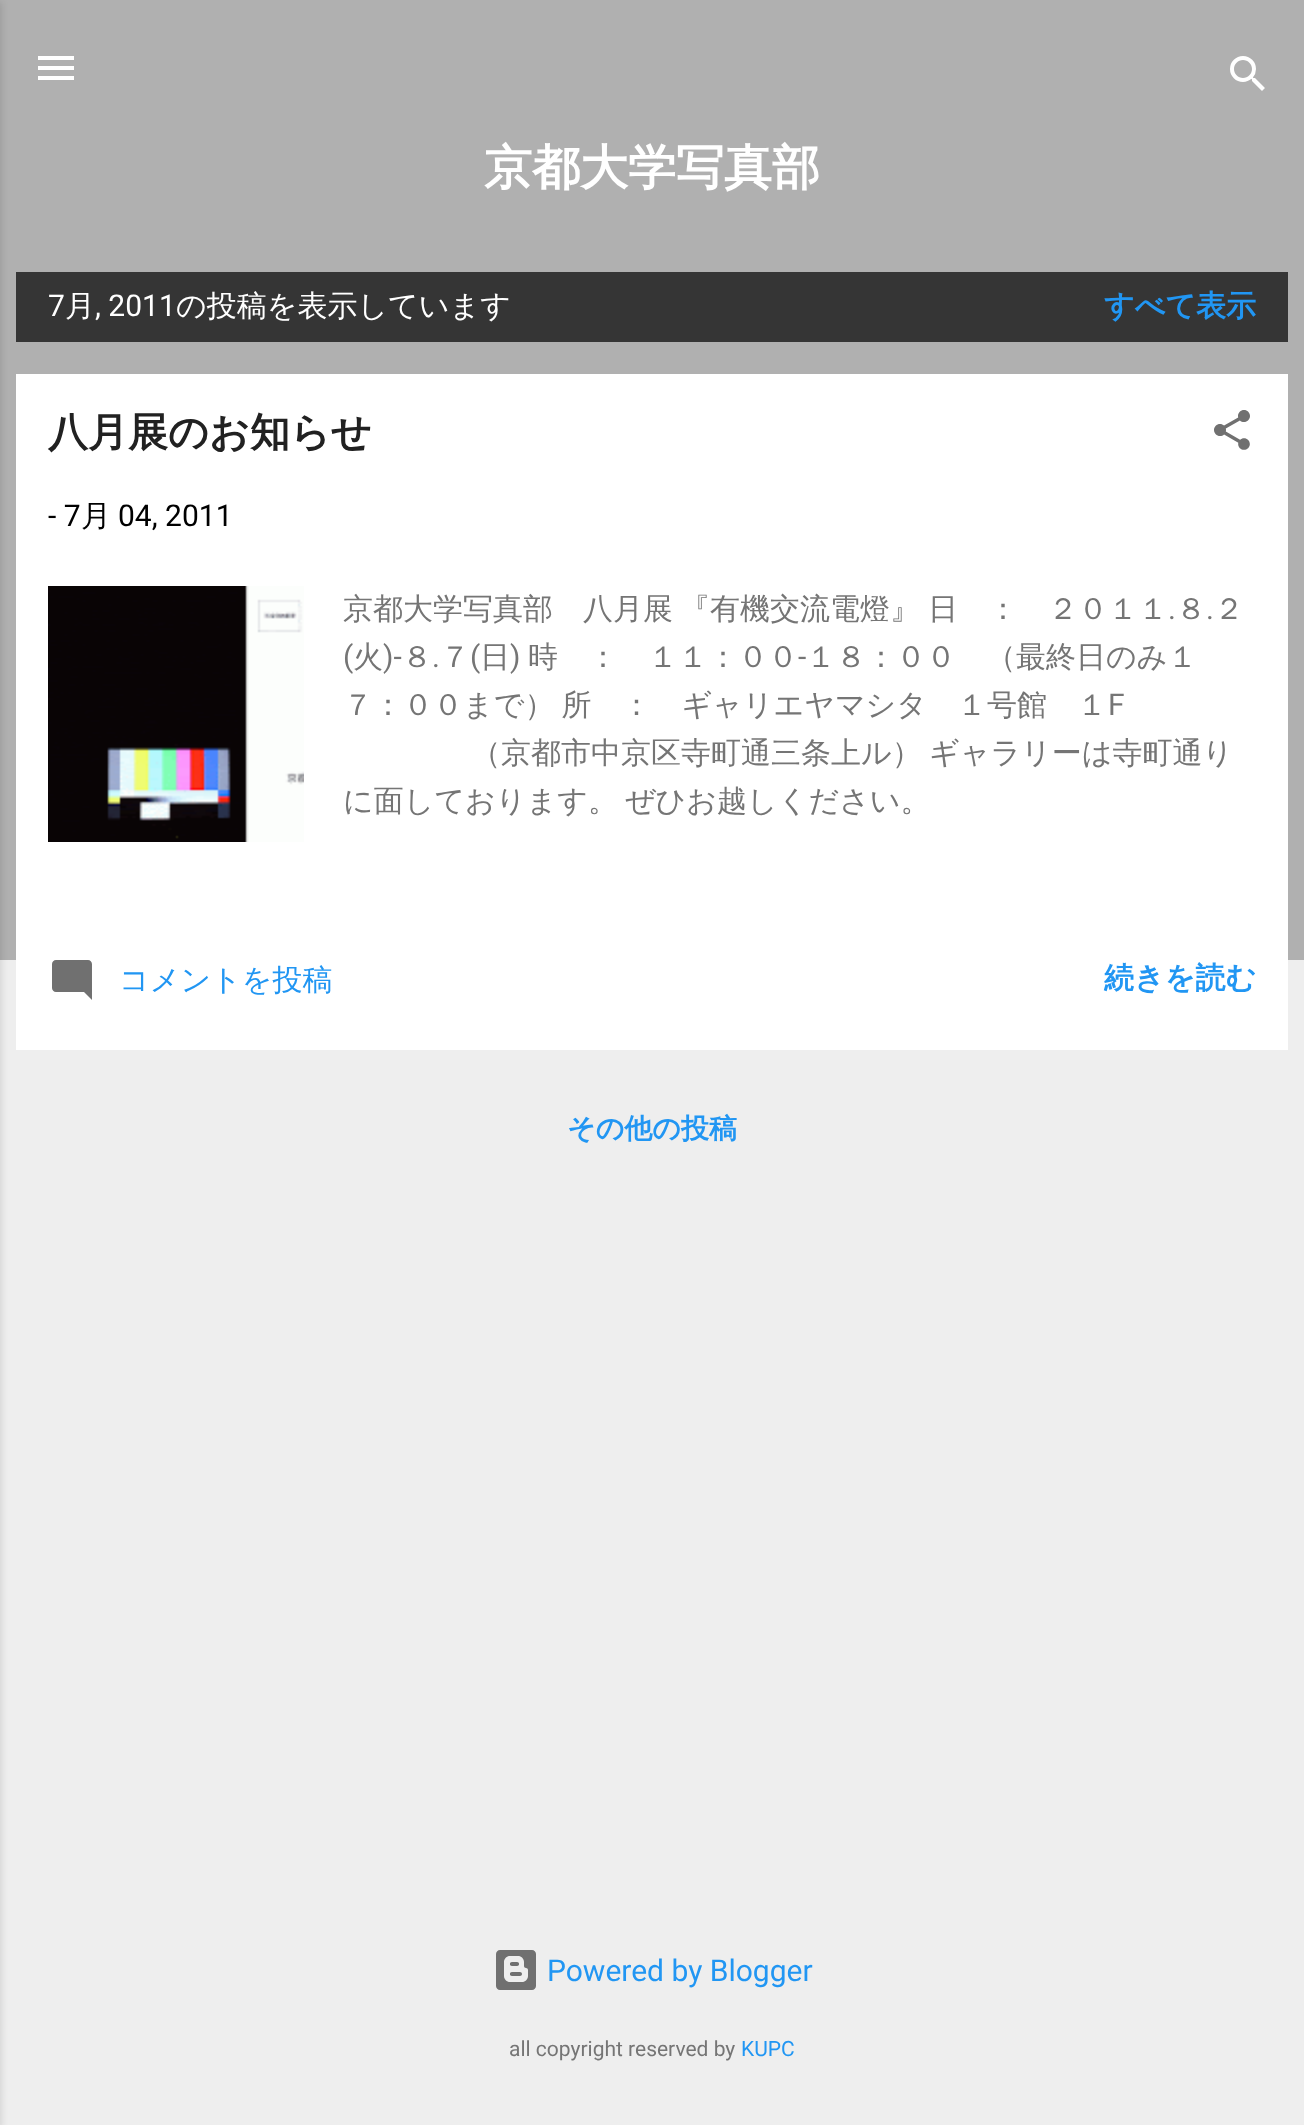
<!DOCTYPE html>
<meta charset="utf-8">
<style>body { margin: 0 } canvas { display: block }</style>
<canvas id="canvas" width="1304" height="2125"></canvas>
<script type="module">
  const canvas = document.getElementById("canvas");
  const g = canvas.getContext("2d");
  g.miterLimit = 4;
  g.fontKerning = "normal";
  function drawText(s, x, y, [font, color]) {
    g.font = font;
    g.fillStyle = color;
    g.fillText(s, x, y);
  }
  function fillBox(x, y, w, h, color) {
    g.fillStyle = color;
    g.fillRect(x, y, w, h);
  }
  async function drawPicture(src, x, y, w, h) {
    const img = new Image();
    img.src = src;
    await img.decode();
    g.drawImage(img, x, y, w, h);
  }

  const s1 = ["bold 48px WenQuanYi Zen Hei", "#FFFFFF"];
  const s2 = ["30px Roboto", "#FFFFFF"];
  const s3 = ["500 30px WenQuanYi Zen Hei", "#FFFFFF"];
  const s4 = ["bold 30px WenQuanYi Zen Hei", "#2196F3"];
  const s5 = ["bold 40px WenQuanYi Zen Hei", "#212121"];
  const s6 = ["30px Roboto", "#000000"];
  const s7 = ["500 30px WenQuanYi Zen Hei", "#000000"];
  const s8 = ["500 30px WenQuanYi Zen Hei", "#757575"];
  const s9 = ["30px Roboto", "#757575"];
  const s10 = ["500 30px WenQuanYi Zen Hei", "#2196F3"];
  const s11 = ["bold 28px WenQuanYi Zen Hei", "#2196F3"];
  const s12 = ["30px Roboto", "#2196F3"];
  const s13 = ["21px Roboto", "#757575"];
  const s14 = ["21px Roboto", "#2196F3"];

  fillBox(0, 0, 1304, 2125, "#EEEEEE");
  fillBox(0, 0, 1304, 960, "#B0B0B0");
  g.fillStyle = "rgba(0, 0, 0, 0.1)";
  g.filter = "blur(3px)";
  g.beginPath();
  g.rect(-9, 2, 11, 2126);
  g.fill();
  g.filter = "none";
  await drawPicture("pic1.png", 38, 56, 36, 24);
  await drawPicture("pic2.png", 1230, 56, 35, 35);
  drawText("京都大学写真部", 484, 184, s1);
  fillBox(16, 272, 1272, 70, "#353535");
  drawText("7", 48, 316, s2);
  drawText("月", 65, 316, s3);
  drawText(", 2011", 95, 316, s2);
  drawText("の投稿を表示しています", 176, 316, s3);
  drawText("すべて表示", 1104, 316, s4);
  fillBox(16, 374, 1272, 676, "#FFFFFF");
  drawText("八月展のお知らせ", 48, 446, s5);
  await drawPicture("pic3.png", 1214, 410, 36, 40);
  drawText("- 7", 48, 526, s6);
  drawText("月", 81, 526, s7);
  drawText("04, 2011", 118, 526, s6);
  await drawPicture("pic4.png", 48, 586, 256, 256);
  g.wordSpacing = "-2px";
  drawText("京都大学写真部　八月展 『有機交流電燈』", 343, 619, s8);
  g.wordSpacing = "0px";
  drawText("日　：　２０１１", 928, 619, s8);
  drawText(".", 1168, 619, s9);
  drawText("８", 1176, 619, s8);
  drawText(".", 1206, 619, s9);
  drawText("２", 1214, 619, s8);
  drawText("(", 343, 667, s9);
  drawText("火", 353, 667, s8);
  drawText(")-", 383, 667, s9);
  drawText("８", 402, 667, s8);
  drawText("７", 440, 667, s8);
  drawText("(", 470, 667, s9);
  drawText("日", 480, 667, s8);
  drawText(")", 510, 667, s9);
  drawText("時　：　１１：００", 528, 667, s8);
  drawText("-", 798, 667, s9);
  drawText("１８：００　（最終日のみ１", 806, 667, s8);
  drawText(".", 432, 667, s9);
  g.wordSpacing = "-2px";
  drawText("７：００まで） 所　：　ギャリエヤマシタ　１号館　１", 343, 715, s8);
  g.wordSpacing = "0px";
  drawText("F", 1108, 715, s9);
  drawText("（京都市中京区寺町通三条上ル）", 471, 763, s8);
  drawText("ギャラリーは寺町通り", 929, 763, s8);
  g.wordSpacing = "-2px";
  drawText("に面しております。 ぜひお越しください。", 343, 811, s8);
  await drawPicture("pic5.png", 52, 960, 40, 40);
  g.wordSpacing = "0px";
  drawText("コメントを投稿", 119, 990, s10);
  drawText("続きを読む", 1104, 988, s4);
  drawText("その他の投稿", 567, 1138, s11);
  await drawPicture("pic6.png", 496, 1950, 40, 40);
  drawText("Powered by Blogger", 547, 1981, s12);
  drawText("all copyright reserved by", 509, 2056, s13);
  drawText("KUPC", 741, 2056, s14);
</script>
